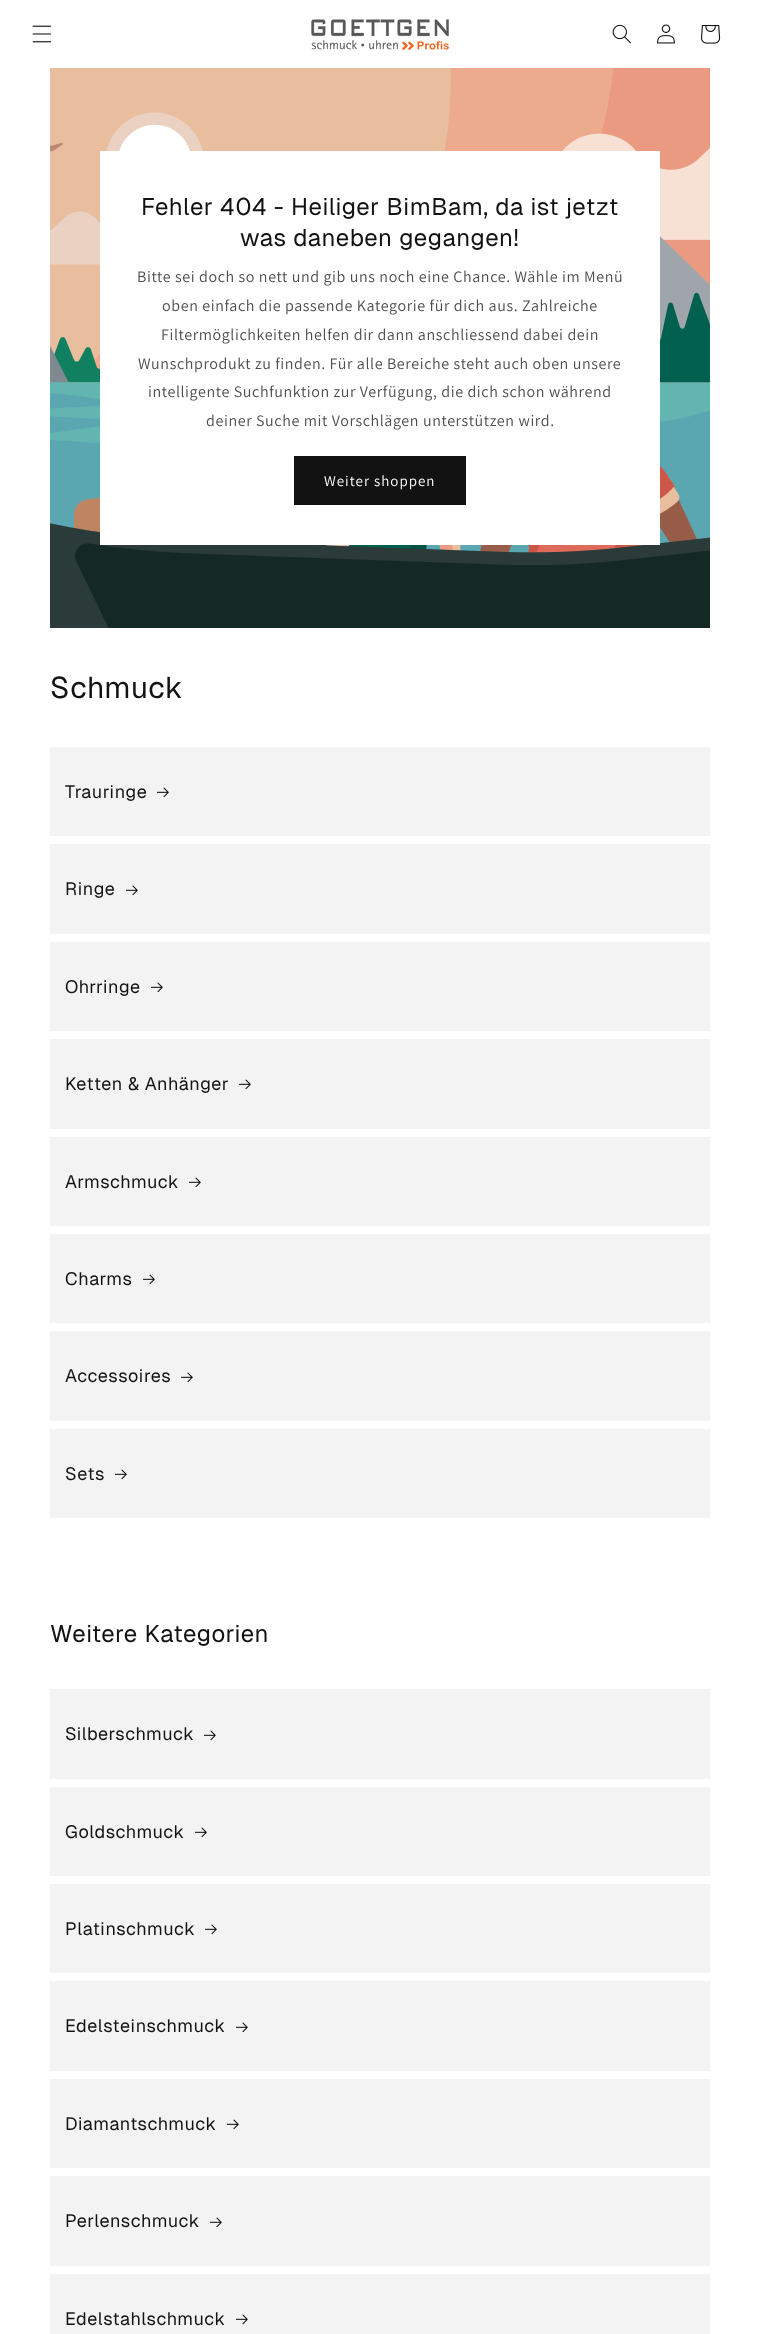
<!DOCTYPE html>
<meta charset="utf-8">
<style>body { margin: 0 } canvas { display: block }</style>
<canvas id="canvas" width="760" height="2334"></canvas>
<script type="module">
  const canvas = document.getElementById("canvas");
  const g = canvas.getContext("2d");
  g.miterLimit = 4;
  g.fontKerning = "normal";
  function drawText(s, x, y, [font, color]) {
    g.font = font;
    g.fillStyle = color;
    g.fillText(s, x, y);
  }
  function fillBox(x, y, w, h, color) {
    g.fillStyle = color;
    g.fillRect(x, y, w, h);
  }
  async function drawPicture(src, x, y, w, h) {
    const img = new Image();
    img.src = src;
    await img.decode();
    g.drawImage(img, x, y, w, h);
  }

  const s1 = ["24px Geist", "#121212"];
  const s2 = ["16px Assistant", "#4D4D4D"];
  const s3 = ["15px Assistant", "#FFFFFF"];
  const s4 = ["30px Geist", "#121212"];
  const s5 = ["18px Geist", "#121212"];

  fillBox(0, 0, 760, 2334, "#FFFFFF");
  await drawPicture("pic1.png", 32, 25, 20, 18);
  await drawPicture("pic2.png", 311, 19, 138, 31);
  await drawPicture("pic3.png", 612, 24, 19, 20);
  await drawPicture("pic4.png", 657, 24, 18, 20);
  await drawPicture("pic5.png", 701, 25, 20, 19);
  await drawPicture("pic6.png", 50, 68, 660, 560);
  fillBox(100, 151, 560, 394, "#FFFFFF");
  g.letterSpacing = "0.6px";
  drawText("Fehler 404 - Heiliger BimBam, da ist jetzt", 141, 215, s1);
  drawText("was daneben gegangen!", 240, 246, s1);
  drawText("Bitte sei doch so nett und gib uns noch eine Chance. Wähle im Menü", 137, 282, s2);
  drawText("oben einfach die passende Kategorie für dich aus. Zahlreiche", 162, 311, s2);
  drawText("Filtermöglichkeiten helfen dir dann anschliessend dabei dein", 161, 340, s2);
  drawText("Wunschprodukt zu finden. Für alle Bereiche steht auch oben unsere", 138, 369, s2);
  drawText("intelligente Suchfunktion zur Verfügung, die dich schon während", 148, 397, s2);
  drawText("deiner Suche mit Vorschlägen unterstützen wird.", 206, 426, s2);
  fillBox(294, 456, 172, 49, "#121212");
  g.letterSpacing = "1px";
  drawText("Weiter shoppen", 324, 486, s3);
  g.letterSpacing = "0.6px";
  drawText("Schmuck", 50, 698, s4);
  fillBox(50, 747, 660, 89, "#F3F3F3");
  drawText("Trauringe", 65, 798, s5);
  await drawPicture("pic7.png", 157, 787, 12, 11);
  fillBox(50, 844, 660, 90, "#F3F3F3");
  drawText("Ringe", 65, 895, s5);
  await drawPicture("pic8.png", 126, 885, 12, 10);
  fillBox(50, 942, 660, 89, "#F3F3F3");
  drawText("Ohrringe", 65, 993, s5);
  await drawPicture("pic7.png", 151, 982, 12, 11);
  fillBox(50, 1039, 660, 90, "#F3F3F3");
  drawText("Ketten & Anhänger", 65, 1090, s5);
  await drawPicture("pic7.png", 239, 1079, 12, 11);
  fillBox(50, 1137, 660, 89, "#F3F3F3");
  drawText("Armschmuck", 65, 1188, s5);
  await drawPicture("pic7.png", 189, 1177, 12, 11);
  fillBox(50, 1234, 660, 89, "#F3F3F3");
  drawText("Charms", 65, 1285, s5);
  await drawPicture("pic7.png", 143, 1274, 12, 11);
  fillBox(50, 1331, 660, 90, "#F3F3F3");
  drawText("Accessoires", 65, 1382, s5);
  await drawPicture("pic8.png", 181, 1372, 12, 10);
  fillBox(50, 1429, 660, 89, "#F3F3F3");
  drawText("Sets", 65, 1480, s5);
  await drawPicture("pic7.png", 115, 1469, 12, 11);
  drawText("Weitere Kategorien", 50, 1642, s1);
  fillBox(50, 1689, 660, 90, "#F3F3F3");
  drawText("Silberschmuck", 65, 1740, s5);
  await drawPicture("pic8.png", 204, 1730, 12, 10);
  fillBox(50, 1787, 660, 89, "#F3F3F3");
  drawText("Goldschmuck", 65, 1838, s5);
  await drawPicture("pic7.png", 195, 1827, 12, 11);
  fillBox(50, 1884, 660, 89, "#F3F3F3");
  drawText("Platinschmuck", 65, 1935, s5);
  await drawPicture("pic7.png", 205, 1924, 12, 11);
  fillBox(50, 1981, 660, 90, "#F3F3F3");
  drawText("Edelsteinschmuck", 65, 2032, s5);
  await drawPicture("pic8.png", 236, 2022, 12, 10);
  fillBox(50, 2079, 660, 89, "#F3F3F3");
  drawText("Diamantschmuck", 65, 2130, s5);
  await drawPicture("pic7.png", 227, 2119, 12, 11);
  fillBox(50, 2176, 660, 90, "#F3F3F3");
  drawText("Perlenschmuck", 65, 2227, s5);
  await drawPicture("pic8.png", 210, 2217, 12, 10);
  fillBox(50, 2274, 660, 60, "#F3F3F3");
  drawText("Edelstahlschmuck", 65, 2325, s5);
  await drawPicture("pic7.png", 236, 2314, 12, 11);
</script>
